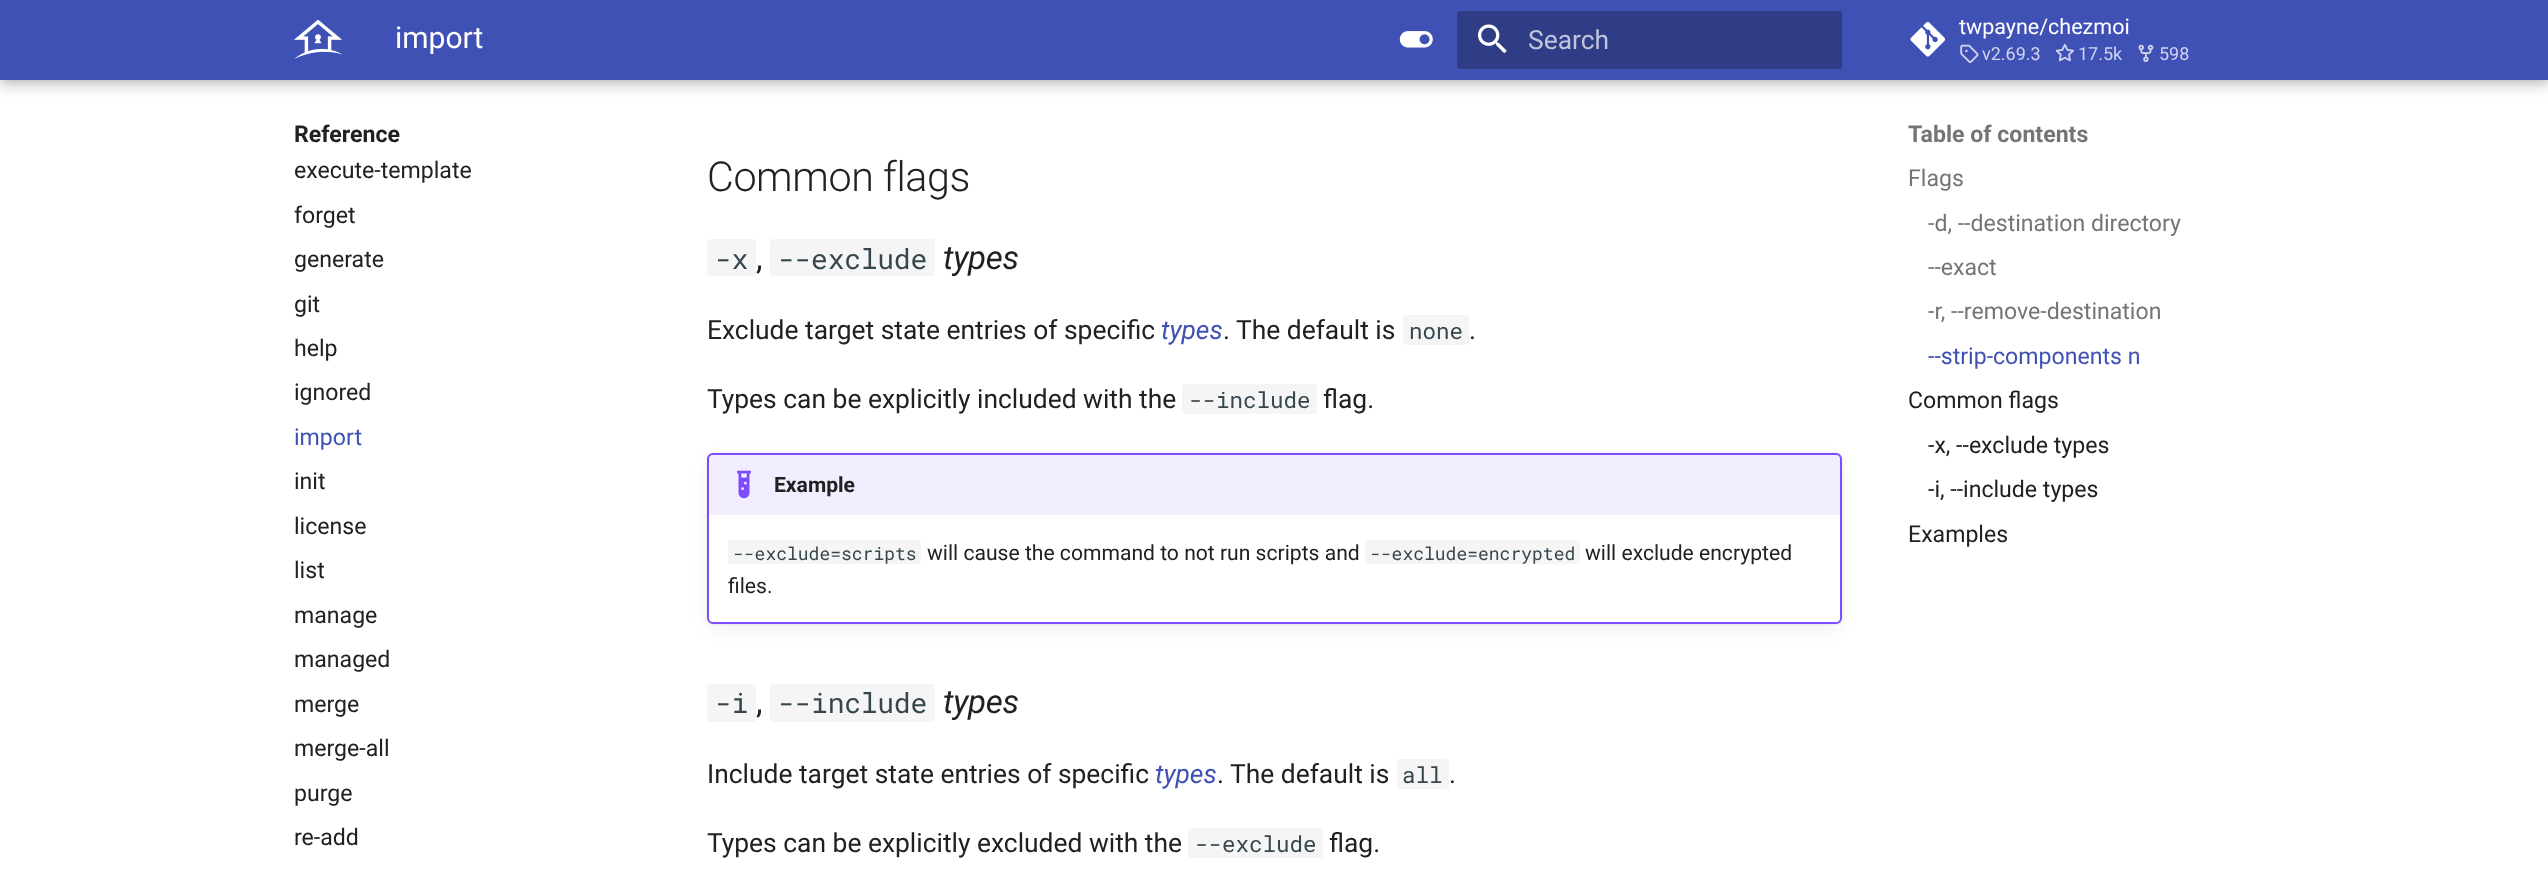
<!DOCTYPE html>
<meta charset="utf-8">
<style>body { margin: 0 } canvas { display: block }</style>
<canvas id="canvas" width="2548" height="896"></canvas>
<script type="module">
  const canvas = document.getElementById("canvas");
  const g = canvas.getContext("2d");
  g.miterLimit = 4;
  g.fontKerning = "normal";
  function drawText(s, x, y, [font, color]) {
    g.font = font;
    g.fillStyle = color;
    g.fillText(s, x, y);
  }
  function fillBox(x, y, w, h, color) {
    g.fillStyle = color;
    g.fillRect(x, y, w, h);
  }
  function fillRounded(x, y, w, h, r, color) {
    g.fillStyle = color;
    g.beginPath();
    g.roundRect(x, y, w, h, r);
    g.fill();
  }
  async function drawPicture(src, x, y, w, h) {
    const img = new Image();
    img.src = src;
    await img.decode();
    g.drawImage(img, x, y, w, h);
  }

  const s1 = ["30px Roboto", "#FFFFFF"];
  const s2 = ["26.4px Roboto", "#C1C5DB"];
  const s3 = ["21.5px Roboto", "#FFFFFF"];
  const s4 = ["18px Roboto", "#CFD4ED"];
  const s5 = ["bold 23.1px Roboto", "#212121"];
  const s6 = ["23.1px Roboto", "#212121"];
  const s7 = ["23.1px Roboto", "#4051B5"];
  const s8 = ["300 41.25px Roboto", "#212121"];
  const s9 = ["28px Roboto Mono", "#36464E"];
  const s10 = ["33px Roboto", "#212121"];
  const s11 = ["italic 33px Roboto", "#212121"];
  const s12 = ["26.4px Roboto", "#212121"];
  const s13 = ["italic 26.4px Roboto", "#4051B5"];
  const s14 = ["22.5px Roboto Mono", "#36464E"];
  const s15 = ["bold 21.1px Roboto", "#212121"];
  const s16 = ["18px Roboto Mono", "#36464E"];
  const s17 = ["21.1px Roboto", "#212121"];
  const s18 = ["bold 23.1px Roboto", "#757575"];
  const s19 = ["23.1px Roboto", "#757575"];

  fillBox(0, 0, 2548, 896, "#FFFFFF");
  g.fillStyle = "rgba(0, 0, 0, 0.2)";
  g.filter = "blur(6.5px)";
  g.beginPath();
  g.rect(0, 6, 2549, 80);
  g.fill();
  g.filter = "none";
  g.fillStyle = "rgba(0, 0, 0, 0.1)";
  g.filter = "blur(3.5px)";
  g.beginPath();
  g.rect(0, 0, 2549, 80);
  g.fill();
  g.filter = "none";
  fillBox(0, 0, 2548, 80, "#4051B5");
  await drawPicture("pic1.png", 294, 20, 48, 39);
  drawText("import", 395, 48, s1);
  await drawPicture("pic2.png", 1399, 31, 34, 17);
  fillRounded(1457, 11, 385, 58, 3, "#2F3C86");
  await drawPicture("pic3.png", 1478, 24, 29, 30);
  drawText("Search", 1528, 49, s2);
  await drawPicture("pic4.png", 1910, 22, 36, 35);
  drawText("twpayne/chezmoi", 1959, 34, s3);
  await drawPicture("pic5.png", 1960, 44, 19, 19);
  drawText("v2.69.3", 1982, 60, s4);
  await drawPicture("pic6.png", 2055, 44, 19, 18);
  drawText("17.5k", 2078, 60, s4);
  await drawPicture("pic7.png", 2138, 44, 16, 18);
  drawText("598", 2159, 60, s4);
  g.save();
  g.beginPath();
  g.rect(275, 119, 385, 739);
  g.clip();
  g.fillStyle = "#FFFFFF";
  g.filter = "blur(6.5px)";
  g.beginPath();
  g.rect(281, 105, 373, 57);
  g.fill();
  g.filter = "none";
  g.restore();
  drawText("Reference", 294, 142, s5);
  drawText("execute-template", 294, 178, s6);
  drawText("forget", 294, 223, s6);
  drawText("generate", 294, 267, s6);
  drawText("git", 294, 312, s6);
  drawText("help", 294, 356, s6);
  drawText("ignored", 294, 400, s6);
  drawText("import", 294, 445, s7);
  drawText("init", 294, 489, s6);
  drawText("license", 294, 534, s6);
  drawText("list", 294, 578, s6);
  drawText("manage", 294, 623, s6);
  drawText("managed", 294, 667, s6);
  drawText("merge", 294, 712, s6);
  drawText("merge-all", 294, 756, s6);
  drawText("purge", 294, 801, s6);
  drawText("re-add", 294, 845, s6);
  g.letterSpacing = "-0.4px";
  drawText("Common flags", 707, 191, s8);
  fillRounded(707, 239, 49, 37, 3, "#F5F5F5");
  g.letterSpacing = "-0.25px";
  drawText("-x", 715, 269, s9);
  drawText(",", 756, 269, s10);
  fillRounded(770, 239, 165, 37, 3, "#F5F5F5");
  drawText("--exclude", 778, 269, s9);
  drawText("types", 943, 269, s11);
  g.letterSpacing = "0px";
  drawText("Exclude target state entries of specific", 707, 339, s12);
  drawText("types", 1161, 339, s13);
  drawText(". The default is", 1223, 339, s12);
  fillRounded(1403, 315, 66, 30, 3, "#F5F5F5");
  drawText("none", 1409, 339, s14);
  drawText(".", 1469, 339, s12);
  drawText("Types can be explicitly included with the", 707, 408, s12);
  fillRounded(1182, 384, 135, 30, 3, "#F5F5F5");
  drawText("--include", 1189, 408, s14);
  drawText("flag.", 1323, 408, s12);
  g.fillStyle = "rgba(0, 0, 0, 0.1)";
  g.filter = "blur(1px)";
  g.beginPath();
  g.roundRect(707, 453, 1135, 171, 6);
  g.fill();
  g.filter = "none";
  g.fillStyle = "rgba(0, 0, 0, 0.05)";
  g.filter = "blur(8px)";
  g.beginPath();
  g.roundRect(707, 459, 1135, 171, 6);
  g.fill();
  g.filter = "none";
  g.fillStyle = "#FFFFFF";
  g.beginPath();
  g.roundRect(708, 454, 1133, 169, 5);
  g.fill();
  g.strokeStyle = "#7C4DFF";
  g.lineWidth = 2;
  g.stroke();
  g.fillStyle = "rgba(124, 77, 255, 0.1)";
  g.beginPath();
  g.roundRect(708, 455, 1133, 60, [3, 3, 0, 0]);
  g.fill();
  await drawPicture("pic8.png", 737, 470, 14, 29);
  drawText("Example", 774, 492, s15);
  fillRounded(728, 540, 193, 24, 3, "#F5F5F5");
  drawText("--exclude=scripts", 733, 560, s16);
  drawText("will cause the command to not run scripts and", 927, 560, s17);
  fillRounded(1365, 540, 215, 24, 3, "#F5F5F5");
  drawText("--exclude=encrypted", 1370, 560, s16);
  drawText("will exclude encrypted", 1585, 560, s17);
  drawText("files.", 728, 593, s17);
  fillRounded(707, 684, 49, 38, 3, "#F5F5F5");
  g.letterSpacing = "-0.25px";
  drawText("-i", 715, 713, s9);
  drawText(",", 756, 713, s10);
  fillRounded(770, 684, 165, 38, 3, "#F5F5F5");
  drawText("--include", 778, 713, s9);
  drawText("types", 943, 713, s11);
  g.letterSpacing = "0px";
  drawText("Include target state entries of specific", 707, 783, s12);
  drawText("types", 1155, 783, s13);
  drawText(". The default is", 1217, 783, s12);
  fillRounded(1397, 759, 52, 30, 3, "#F5F5F5");
  drawText("all", 1402, 783, s14);
  drawText(".", 1449, 783, s12);
  drawText("Types can be explicitly excluded with the", 707, 852, s12);
  fillRounded(1188, 828, 135, 30, 3, "#F5F5F5");
  drawText("--exclude", 1195, 852, s14);
  drawText("flag.", 1329, 852, s12);
  g.save();
  g.beginPath();
  g.rect(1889, 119, 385, 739);
  g.clip();
  g.beginPath();
  g.moveTo(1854, 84);
  g.lineTo(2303, 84);
  g.lineTo(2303, 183);
  g.lineTo(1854, 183);
  g.closePath();
  g.moveTo(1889, 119);
  g.lineTo(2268, 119);
  g.lineTo(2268, 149);
  g.lineTo(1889, 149);
  g.closePath();
  g.clip("evenodd");
  g.fillStyle = "#FFFFFF";
  g.filter = "blur(6.5px)";
  g.beginPath();
  g.rect(1875, 105, 407, 57);
  g.fill();
  g.filter = "none";
  g.restore();
  drawText("Table of contents", 1908, 142, s18);
  drawText("Flags", 1908, 186, s19);
  drawText("-d, --destination directory", 1928, 231, s19);
  drawText("--exact", 1928, 275, s19);
  drawText("-r, --remove-destination", 1928, 319, s19);
  drawText("--strip-components n", 1928, 364, s7);
  drawText("Common flags", 1908, 408, s6);
  drawText("-x, --exclude types", 1928, 453, s6);
  drawText("-i, --include types", 1928, 497, s6);
  drawText("Examples", 1908, 542, s6);
</script>
